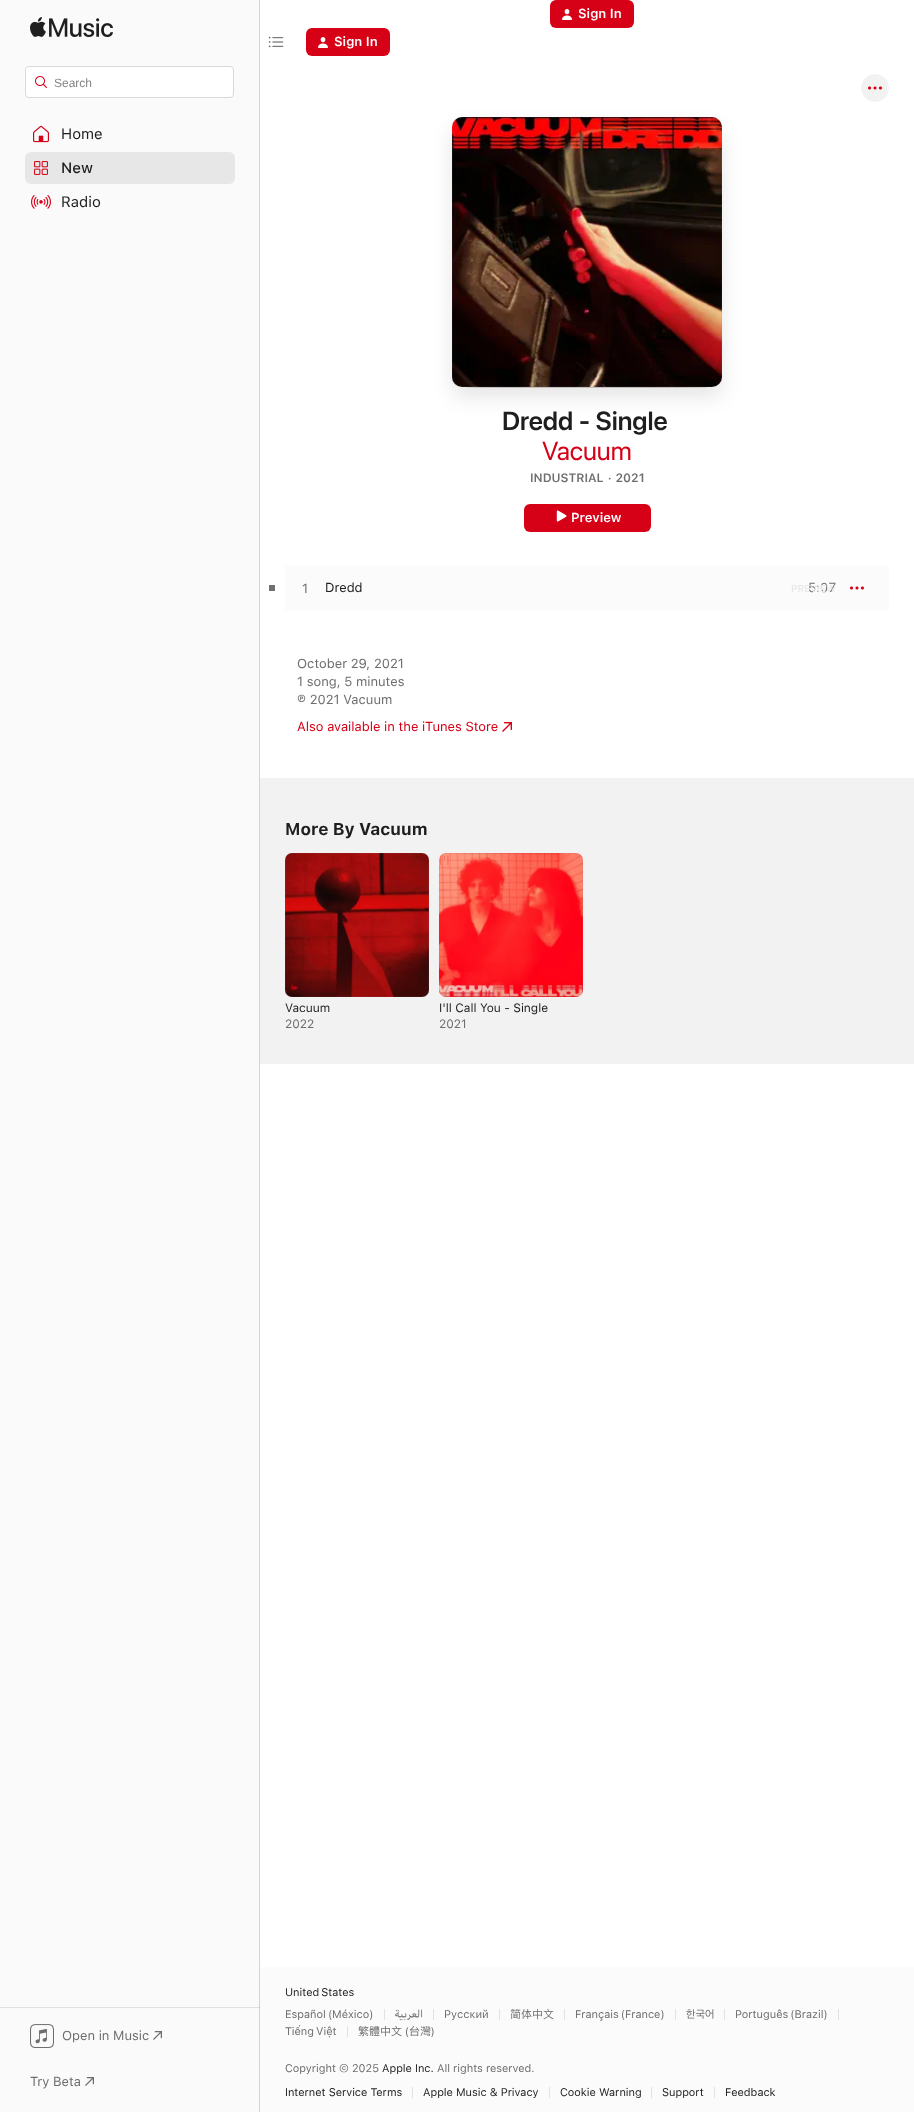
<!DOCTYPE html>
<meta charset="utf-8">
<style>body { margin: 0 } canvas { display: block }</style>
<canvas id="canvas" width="914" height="2112"></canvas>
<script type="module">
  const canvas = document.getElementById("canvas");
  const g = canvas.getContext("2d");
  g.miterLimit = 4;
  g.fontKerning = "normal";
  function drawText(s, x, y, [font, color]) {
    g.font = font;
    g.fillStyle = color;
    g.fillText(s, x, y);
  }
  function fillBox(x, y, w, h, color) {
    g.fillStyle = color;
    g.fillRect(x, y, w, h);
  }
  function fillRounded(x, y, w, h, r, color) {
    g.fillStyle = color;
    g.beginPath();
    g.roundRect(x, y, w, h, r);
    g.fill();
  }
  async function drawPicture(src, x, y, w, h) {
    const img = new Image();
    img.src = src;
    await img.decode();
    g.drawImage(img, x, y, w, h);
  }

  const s1 = ["600 13px SF", "#FFFFFF"];
  const s2 = ["12px Liberation Sans", "#858585"];
  const s3 = ["15px SF", "#1E1E1E"];
  const s4 = ["500 15px SF", "#1E1E1E"];
  const s5 = ["13px SF", "#6E6E6E"];
  const s6 = ["600 26px 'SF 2'", "#1E1E1E"];
  const s7 = ["26px 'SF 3'", "#D60017"];
  const s8 = ["600 12px SF", "#6E6E6E"];
  const s9 = ["13px SF", "#1E1E1E"];
  const s10 = ["13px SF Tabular", "#6E6E6E"];
  const s11 = ["500 10px SF", "#E8E8E8"];
  const s12 = ["13px SF", "#D60017"];
  const s13 = ["bold 17px SF", "#1E1E1E"];
  const s14 = ["12px SF", "#1E1E1E"];
  const s15 = ["12px SF", "#6E6E6E"];
  const s16 = ["13px SF", "#FC6958"];
  const s17 = ["11px SF", "#1E1E1E"];
  const s18 = ["11px SF", "#6E6E6E"];
  const s19 = ["11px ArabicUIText", "#6E6E6E"];
  const s20 = ["11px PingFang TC", "#6E6E6E"];
  const s21 = ["11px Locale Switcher", "#6E6E6E"];
  const s22 = ["11px 'SF 2'", "#6E6E6E"];

  fillBox(0, 0, 914, 2112, "#FFFFFF");
  fillRounded(550, 0, 84, 28, 6, "#D60017");
  await drawPicture("pic1.png", 562, 9, 10, 11);
  drawText("Sign In", 578, 18, s1);
  await drawPicture("pic2.png", 268, 36, 16, 12);
  fillRounded(306, 28, 84, 28, 6, "#D60017");
  await drawPicture("pic1.png", 318, 37, 10, 11);
  drawText("Sign In", 334, 46, s1);
  fillBox(0, 0, 259, 2112, "#FAFAFA");
  fillBox(0, 2007, 260, 1, "#E1E1E1");
  fillBox(259, 0, 1, 2112, "#D5D5D5");
  fillBox(259, 2007, 1, 1, "#C0C0C0");
  await drawPicture("pic3.png", 30, 17, 83, 20);
  g.fillStyle = "#FFFFFF";
  g.beginPath();
  g.roundRect(25.5, 66.5, 208, 31, 3.5);
  g.fill();
  g.strokeStyle = "#D9D9D9";
  g.stroke();
  await drawPicture("pic4.png", 35, 76, 12, 12);
  drawText("Search", 54, 87, s2);
  await drawPicture("pic5.png", 33, 125, 16, 18);
  drawText("Home", 61, 139, s3);
  fillRounded(25, 152, 210, 32, 6, "#E7E7E8");
  await drawPicture("pic6.png", 34, 161, 14, 14);
  drawText("New", 61, 173, s4);
  await drawPicture("pic7.png", 31, 195, 20, 14);
  drawText("Radio", 61, 207, s3);
  await drawPicture("pic8.png", 30, 2024, 24, 24);
  drawText("Open in Music", 62, 2040, s5);
  await drawPicture("pic9.png", 153, 2031, 9, 9);
  drawText("Try Beta", 30, 2086, s5);
  await drawPicture("pic9.png", 85, 2077, 9, 9);
  await drawPicture("pic10.png", 861, 74, 28, 28);
  g.fillStyle = "rgba(0, 0, 0, 0.1)";
  g.filter = "blur(10px)";
  g.beginPath();
  g.roundRect(452, 127, 270, 270, 10);
  g.fill();
  g.filter = "none";
  await drawPicture("pic11.png", 452, 117, 270, 270);
  g.beginPath();
  g.roundRect(452.5, 117.5, 269, 269, 9.5);
  g.strokeStyle = "rgba(128, 128, 128, 0.1)";
  g.stroke();
  await drawPicture("pic12.png", 467, 387, 240, 1);
  drawText("Dredd - Single", 502, 430, s6);
  drawText("Vacuum", 542, 460, s7);
  drawText("INDUSTRIAL · 2021", 530, 482, s8);
  fillRounded(524, 504, 127, 28, 6, "#D60017");
  await drawPicture("pic13.png", 556, 510, 11, 12);
  drawText("Preview", 571, 522, s1);
  fillBox(285, 565, 604, 46, "#FBFBFB");
  fillBox(269, 585, 6, 6, "#707070");
  drawText("1", 302, 593, s5);
  drawText("Dredd", 325, 592, s9);
  drawText("5:07", 808, 592, s10);
  drawText("PREVIEW", 791, 592, s11);
  await drawPicture("pic14.png", 850, 586, 14, 4);
  drawText("October 29, 2021", 297, 668, s5);
  drawText("1 song, 5 minutes", 297, 686, s5);
  drawText("℗ 2021 Vacuum", 297, 704, s5);
  drawText("Also available in the iTunes Store", 297, 731, s12);
  await drawPicture("pic15.png", 502, 722, 10, 10);
  fillBox(260, 778, 654, 286, "#F2F2F2");
  drawText("More By Vacuum", 285, 835, s13);
  await drawPicture("pic16.png", 285, 853, 144, 144);
  g.beginPath();
  g.roundRect(285.5, 853.5, 143, 143, 6.5);
  g.stroke();
  drawText("Vacuum", 285, 1012, s14);
  drawText("2022", 285, 1028, s15);
  await drawPicture("pic17.png", 439, 853, 144, 144);
  g.beginPath();
  g.roundRect(439.5, 853.5, 143, 143, 6.5);
  g.stroke();
  drawText("I'l", 439, 865, s16);
  drawText("I'll Call You - Single", 439, 1012, s14);
  drawText("2021", 439, 1028, s15);
  fillBox(260, 1967, 654, 145, "#FBFBFB");
  g.wordSpacing = "-1px";
  drawText("United States", 285, 1996, s17);
  drawText("Español (México)", 285, 2018, s18);
  fillBox(384, 2009, 1, 11, "#E2E2E2");
  g.wordSpacing = "0px";
  g.direction = "rtl";
  drawText("العربية", 423, 2018, s19);
  fillBox(433, 2009, 1, 11, "#E2E2E2");
  g.direction = "ltr";
  drawText("Русский", 444, 2018, s18);
  fillBox(499, 2009, 1, 11, "#E2E2E2");
  drawText("简体中文", 510, 2018, s20);
  fillBox(564, 2009, 1, 11, "#E2E2E2");
  g.wordSpacing = "-1px";
  drawText("Français (France)", 575, 2018, s18);
  fillBox(675, 2009, 1, 11, "#E2E2E2");
  g.wordSpacing = "0px";
  drawText("한국어", 686, 2018, s21);
  fillBox(724, 2009, 1, 11, "#E2E2E2");
  g.wordSpacing = "-1px";
  drawText("Português (Brazil)", 735, 2018, s18);
  fillBox(838, 2009, 1, 11, "#E2E2E2");
  drawText("Tiếng Việt", 285, 2035, s18);
  fillBox(347, 2026, 1, 11, "#E2E2E2");
  g.wordSpacing = "0px";
  drawText("繁體中文", 358, 2035, s20);
  drawText("(", 405, 2035, s22);
  drawText("台灣", 409, 2035, s20);
  drawText(")", 431, 2035, s22);
  drawText("Copyright © 2025", 285, 2072, s18);
  drawText("Apple Inc.", 382, 2072, s17);
  drawText("All rights reserved.", 437, 2072, s18);
  drawText("Internet Service Terms", 285, 2096, s17);
  fillBox(412, 2087, 1, 11, "#E2E2E2");
  drawText("Apple Music & Privacy", 423, 2096, s17);
  fillBox(549, 2087, 1, 11, "#E2E2E2");
  drawText("Cookie Warning", 560, 2096, s17);
  fillBox(651, 2087, 1, 11, "#E2E2E2");
  drawText("Support", 662, 2096, s17);
  fillBox(714, 2087, 1, 11, "#E2E2E2");
  drawText("Feedback", 725, 2096, s17);
</script>
